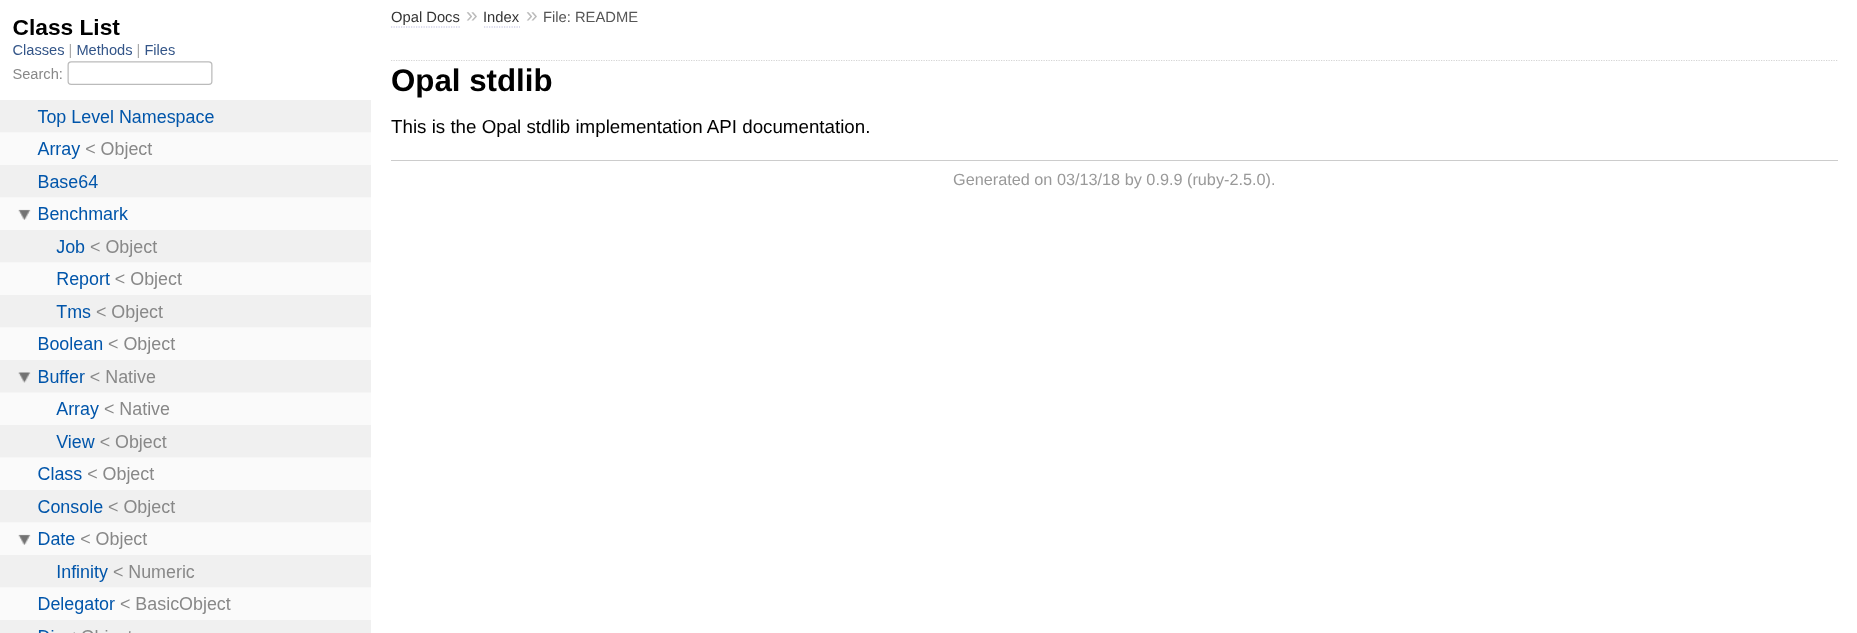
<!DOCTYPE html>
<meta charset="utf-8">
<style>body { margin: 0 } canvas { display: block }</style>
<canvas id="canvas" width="1857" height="633"></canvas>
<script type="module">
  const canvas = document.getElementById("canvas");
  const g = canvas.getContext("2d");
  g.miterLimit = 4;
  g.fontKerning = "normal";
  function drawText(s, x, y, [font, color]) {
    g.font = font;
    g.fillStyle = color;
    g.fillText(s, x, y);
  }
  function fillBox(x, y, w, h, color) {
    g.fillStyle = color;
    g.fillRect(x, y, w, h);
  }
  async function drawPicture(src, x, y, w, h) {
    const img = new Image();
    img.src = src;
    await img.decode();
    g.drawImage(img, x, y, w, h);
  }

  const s1 = ["14.75px Liberation Sans", "#333333"];
  const s2 = ["21px Liberation Sans", "#BBBBBB"];
  const s3 = ["14.75px Liberation Sans", "#555555"];
  const s4 = ["bold 31.25px Liberation Sans", "#000000"];
  const s5 = ["18.75px Liberation Sans", "#000000"];
  const s6 = ["16.25px Liberation Sans", "#999999"];

  fillBox(0, 0, 1857, 633, "#FFFFFF");
  await drawPicture("pic1.png", 0, 0, 371, 633);
  drawText("Opal Docs", 391, 22, s1);
  g.beginPath();
  g.moveTo(391, 27);
  g.lineTo(460, 27);
  g.strokeStyle = "#BBBBDD";
  g.lineWidth = 1.2;
  g.setLineDash([1.25, 1.25]);
  g.stroke();
  drawText("»", 466, 22, s2);
  drawText("Index", 483, 22, s1);
  g.beginPath();
  g.moveTo(484, 27);
  g.lineTo(520, 27);
  g.stroke();
  drawText("»", 526, 22, s2);
  drawText("File: README", 543, 22, s3);
  g.beginPath();
  g.moveTo(391, 60.5);
  g.lineTo(1837.5, 60.5);
  g.strokeStyle = "#D5D5D5";
  g.stroke();
  drawText("Opal stdlib", 391, 91, s4);
  drawText("This is the Opal stdlib implementation API documentation.", 391, 133, s5);
  fillBox(391, 160, 1447, 1, "#CCCCCC");
  drawText("Generated on 03/13/18 by 0.9.9 (ruby-2.5.0).", 953, 185, s6);
</script>
